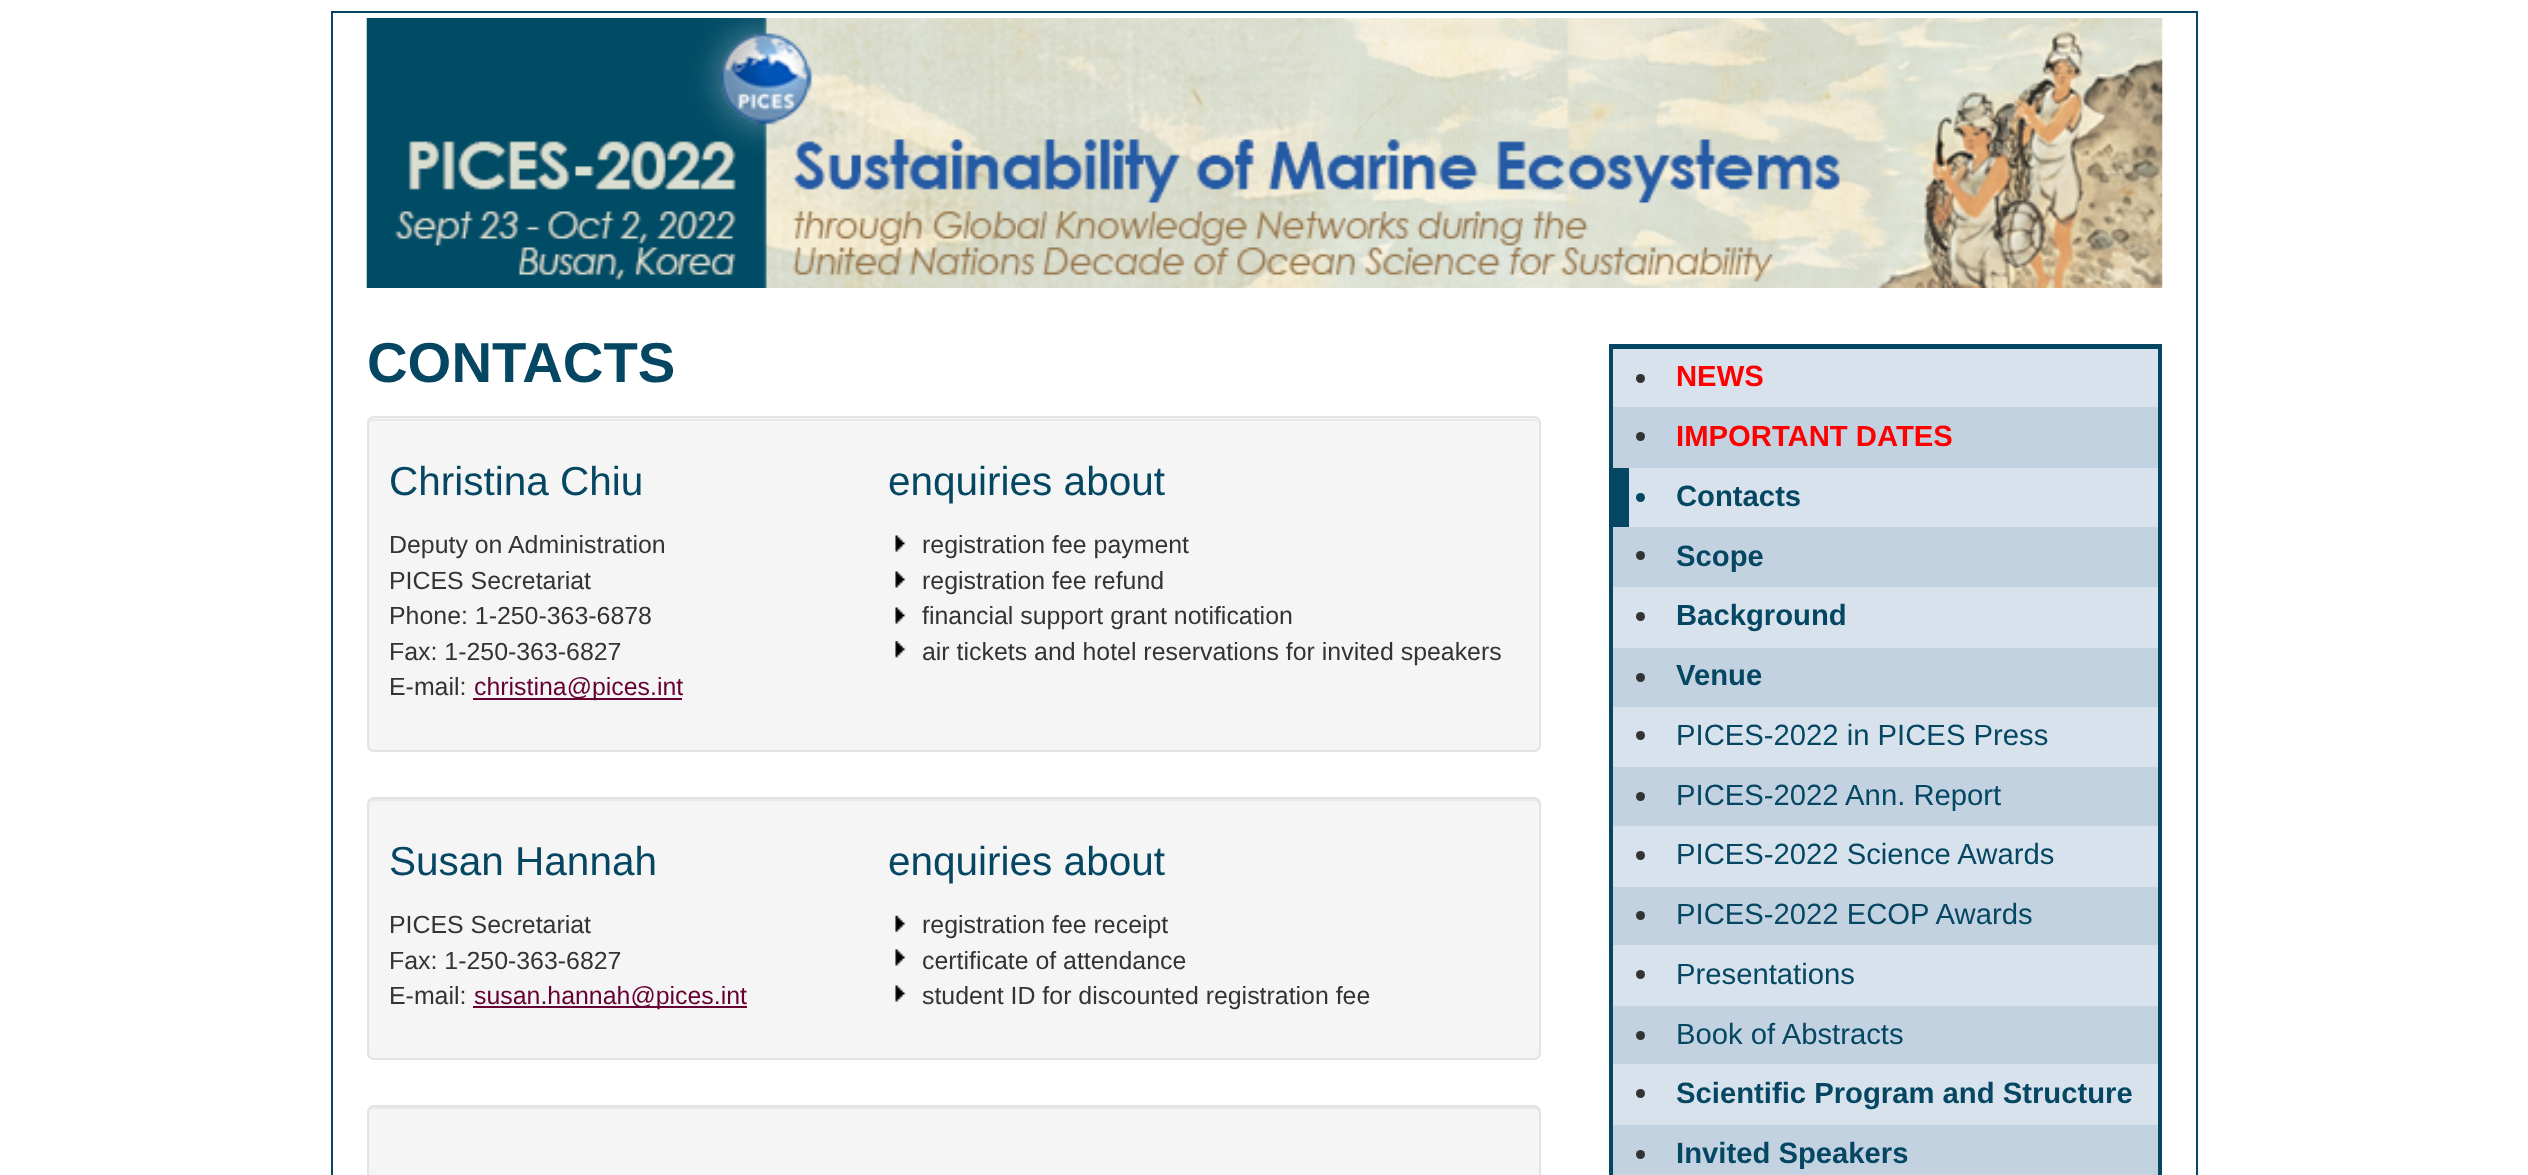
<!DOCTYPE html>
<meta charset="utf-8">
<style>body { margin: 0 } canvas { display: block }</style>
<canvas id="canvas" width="2528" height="1175"></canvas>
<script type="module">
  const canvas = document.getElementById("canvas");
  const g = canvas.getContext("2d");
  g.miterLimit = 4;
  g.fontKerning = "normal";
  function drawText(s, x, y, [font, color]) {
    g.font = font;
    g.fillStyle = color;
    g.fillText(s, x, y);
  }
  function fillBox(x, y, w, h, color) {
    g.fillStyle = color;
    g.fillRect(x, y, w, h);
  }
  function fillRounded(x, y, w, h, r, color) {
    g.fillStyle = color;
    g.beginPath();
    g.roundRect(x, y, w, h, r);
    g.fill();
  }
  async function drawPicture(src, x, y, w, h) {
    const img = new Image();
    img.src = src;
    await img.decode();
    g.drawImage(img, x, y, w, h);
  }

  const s1 = ["bold 56.25px Liberation Sans", "#054763"];
  const s2 = ["40.5px Liberation Sans", "#054763"];
  const s3 = ["24.9px Liberation Sans", "#333333"];
  const s4 = ["24.9px Liberation Sans", "#660033"];
  const s5 = ["bold 29.25px Liberation Sans", "#FF0000"];
  const s6 = ["bold 29.25px Liberation Sans", "#054763"];
  const s7 = ["29.25px Liberation Sans", "#054763"];

  fillBox(0, 0, 2528, 1175, "#FFFFFF");
  g.strokeStyle = "#054763";
  g.lineWidth = 2;
  g.strokeRect(332, 12, 1865, 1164);
  await drawPicture("pic1.png", 366, 18, 1797, 270);
  drawText("CONTACTS", 367, 382, s1);
  fillRounded(367, 416, 1174, 336, 7, "#F5F5F5");
  g.fillStyle = "#E9E9E9";
  g.beginPath();
  g.moveTo(374, 421);
  g.lineTo(1534, 421);
  g.bezierCurveTo(1537, 421, 1539, 423, 1539, 425);
  g.bezierCurveTo(1539, 422, 1537, 419, 1534, 419);
  g.lineTo(374, 419);
  g.bezierCurveTo(371, 419, 369, 422, 369, 425);
  g.bezierCurveTo(369, 423, 371, 421, 374, 421);
  g.closePath();
  g.fill();
  g.beginPath();
  g.roundRect(368, 417, 1172, 334, 6);
  g.strokeStyle = "#E3E3E3";
  g.stroke();
  drawText("Christina Chiu", 389, 495, s2);
  drawText("Deputy on Administration", 389, 553, s3);
  drawText("PICES Secretariat", 389, 589, s3);
  drawText("Phone: 1-250-363-6878", 389, 624, s3);
  drawText("Fax: 1-250-363-6827", 389, 660, s3);
  drawText("E-mail:", 389, 695, s3);
  fillBox(473, 698, 209, 2, "#660033");
  drawText("christina@pices.int", 474, 695, s4);
  drawText("enquiries about", 888, 495, s2);
  await drawPicture("pic2.png", 895, 535, 11, 17);
  drawText("registration fee payment", 922, 553, s3);
  await drawPicture("pic3.png", 895, 571, 11, 17);
  drawText("registration fee refund", 922, 589, s3);
  await drawPicture("pic2.png", 895, 607, 11, 17);
  drawText("financial support grant notification", 922, 624, s3);
  await drawPicture("pic4.png", 895, 641, 11, 17);
  drawText("air tickets and hotel reservations for invited speakers", 922, 660, s3);
  fillRounded(367, 797, 1174, 263, 7, "#F5F5F5");
  g.fillStyle = "#E9E9E9";
  g.beginPath();
  g.moveTo(374, 801);
  g.lineTo(1534, 801);
  g.bezierCurveTo(1537, 801, 1539, 803, 1539, 806);
  g.lineTo(1539, 804);
  g.bezierCurveTo(1539, 801, 1537, 799, 1534, 799);
  g.lineTo(374, 799);
  g.bezierCurveTo(371, 799, 369, 801, 369, 804);
  g.lineTo(369, 806);
  g.bezierCurveTo(369, 803, 371, 801, 374, 801);
  g.closePath();
  g.fill();
  g.beginPath();
  g.roundRect(368, 798, 1172, 261, 6);
  g.stroke();
  drawText("Susan Hannah", 389, 875, s2);
  drawText("PICES Secretariat", 389, 933, s3);
  drawText("Fax: 1-250-363-6827", 389, 969, s3);
  drawText("E-mail:", 389, 1004, s3);
  fillBox(473, 1006, 274, 2, "#660033");
  drawText("susan.hannah@pices.int", 474, 1004, s4);
  drawText("enquiries about", 888, 875, s2);
  await drawPicture("pic5.png", 895, 915, 11, 18);
  drawText("registration fee receipt", 922, 933, s3);
  await drawPicture("pic2.png", 895, 949, 11, 17);
  drawText("certificate of attendance", 922, 969, s3);
  await drawPicture("pic2.png", 895, 985, 11, 17);
  drawText("student ID for discounted registration fee", 922, 1004, s3);
  fillRounded(367, 1105, 1174, 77, 7, "#F5F5F5");
  g.fillStyle = "#E9E9E9";
  g.beginPath();
  g.moveTo(374, 1109);
  g.lineTo(1534, 1109);
  g.bezierCurveTo(1537, 1109, 1539, 1111, 1539, 1114);
  g.lineTo(1539, 1112);
  g.bezierCurveTo(1539, 1109, 1537, 1107, 1534, 1107);
  g.lineTo(374, 1107);
  g.bezierCurveTo(371, 1107, 369, 1109, 369, 1112);
  g.lineTo(369, 1114);
  g.bezierCurveTo(369, 1111, 371, 1109, 374, 1109);
  g.closePath();
  g.fill();
  g.beginPath();
  g.roundRect(368, 1106, 1172, 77, 6);
  g.stroke();
  g.strokeStyle = "#054763";
  g.lineWidth = 5;
  g.strokeRect(1611.5, 346.5, 548, 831);
  fillBox(1613, 349, 545, 58, "#D8E2EC");
  g.fillStyle = "#333333";
  g.beginPath();
  g.arc(1640.5, 378.5, 4.5, 0, Math.PI * 2);
  g.fill();
  drawText("NEWS", 1676, 386, s5);
  fillBox(1613, 407, 545, 61, "#C3D2E1");
  g.fillStyle = "#333333";
  g.beginPath();
  g.arc(1640.5, 436.5, 4.5, 0, Math.PI * 2);
  g.fill();
  drawText("IMPORTANT DATES", 1676, 446, s5);
  fillBox(1629, 468, 529, 59, "#D8E2EC");
  fillBox(1614, 468, 15, 59, "#054763");
  g.beginPath();
  g.arc(1640.5, 497.5, 4.5, 0, Math.PI * 2);
  g.fill();
  drawText("Contacts", 1676, 506, s6);
  fillBox(1613, 527, 545, 60, "#C3D2E1");
  g.fillStyle = "#333333";
  g.beginPath();
  g.arc(1640.5, 555.5, 4.5, 0, Math.PI * 2);
  g.fill();
  drawText("Scope", 1676, 566, s6);
  fillBox(1613, 587, 545, 61, "#D8E2EC");
  g.fillStyle = "#333333";
  g.beginPath();
  g.arc(1640.5, 616.5, 4.5, 0, Math.PI * 2);
  g.fill();
  drawText("Background", 1676, 625, s6);
  fillBox(1613, 648, 545, 59, "#C3D2E1");
  g.fillStyle = "#333333";
  g.beginPath();
  g.arc(1640.5, 677.5, 4.5, 0, Math.PI * 2);
  g.fill();
  drawText("Venue", 1676, 685, s6);
  fillBox(1613, 707, 545, 60, "#D8E2EC");
  g.fillStyle = "#333333";
  g.beginPath();
  g.arc(1640.5, 735.5, 4.5, 0, Math.PI * 2);
  g.fill();
  drawText("PICES-2022 in PICES Press", 1676, 745, s7);
  fillBox(1613, 767, 545, 59, "#C3D2E1");
  g.fillStyle = "#333333";
  g.beginPath();
  g.arc(1640.5, 796.5, 4.5, 0, Math.PI * 2);
  g.fill();
  drawText("PICES-2022 Ann. Report", 1676, 805, s7);
  fillBox(1613, 826, 545, 61, "#D8E2EC");
  g.fillStyle = "#333333";
  g.beginPath();
  g.arc(1640.5, 855.5, 4.5, 0, Math.PI * 2);
  g.fill();
  drawText("PICES-2022 Science Awards", 1676, 864, s7);
  fillBox(1613, 887, 545, 58, "#C3D2E1");
  g.fillStyle = "#333333";
  g.beginPath();
  g.arc(1640.5, 915.5, 4.5, 0, Math.PI * 2);
  g.fill();
  drawText("PICES-2022 ECOP Awards", 1676, 924, s7);
  fillBox(1613, 945, 545, 61, "#D8E2EC");
  g.fillStyle = "#333333";
  g.beginPath();
  g.arc(1640.5, 974.5, 4.5, 0, Math.PI * 2);
  g.fill();
  drawText("Presentations", 1676, 984, s7);
  fillBox(1613, 1006, 545, 58, "#C3D2E1");
  g.fillStyle = "#333333";
  g.beginPath();
  g.arc(1640.5, 1035.5, 4.5, 0, Math.PI * 2);
  g.fill();
  drawText("Book of Abstracts", 1676, 1044, s7);
  fillBox(1613, 1064, 545, 61, "#D8E2EC");
  g.fillStyle = "#333333";
  g.beginPath();
  g.arc(1640.5, 1093.5, 4.5, 0, Math.PI * 2);
  g.fill();
  drawText("Scientific Program and Structure", 1676, 1103, s6);
  fillBox(1613, 1125, 545, 50, "#C3D2E1");
  g.fillStyle = "#333333";
  g.beginPath();
  g.arc(1640.5, 1154.5, 4.5, 0, Math.PI * 2);
  g.fill();
  drawText("Invited Speakers", 1676, 1163, s6);
</script>
